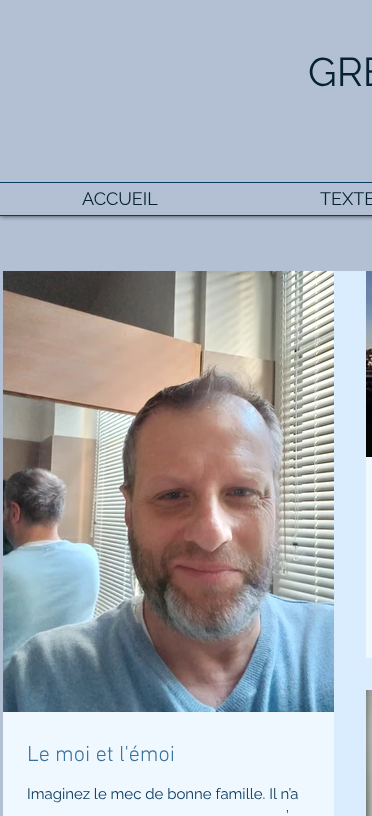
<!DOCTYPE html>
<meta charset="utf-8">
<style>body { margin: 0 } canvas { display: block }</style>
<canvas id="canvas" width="372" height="816"></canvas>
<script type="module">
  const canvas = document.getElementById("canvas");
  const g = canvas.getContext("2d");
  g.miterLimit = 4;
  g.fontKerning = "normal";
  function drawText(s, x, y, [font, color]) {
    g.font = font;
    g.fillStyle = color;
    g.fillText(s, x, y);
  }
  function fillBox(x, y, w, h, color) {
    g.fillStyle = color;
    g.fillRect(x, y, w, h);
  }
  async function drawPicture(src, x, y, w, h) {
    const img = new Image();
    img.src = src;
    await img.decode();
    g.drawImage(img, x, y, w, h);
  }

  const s1 = ["40px Raleway", "#062134"];
  const s2 = ["18px Raleway", "#062134"];
  const s3 = ["300 22px 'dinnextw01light'", "#39729B"];
  const s4 = ["15px Raleway", "#0C3C60"];

  fillBox(0, 0, 372, 816, "#B3C0D3");
  g.save();
  g.beginPath();
  g.rect(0, 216, 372, 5);
  g.clip();
  g.fillStyle = "rgba(0, 0, 0, 0.7)";
  g.filter = "blur(2.5px)";
  g.beginPath();
  g.rect(0, 0, 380, 216);
  g.fill();
  g.filter = "none";
  g.restore();
  drawText("GRE", 308, 86, s1);
  fillBox(0, 182, 372, 1, "#0C3C60");
  fillBox(0, 215, 372, 1, "#0C3C60");
  drawText("ACCUEIL", 82, 205, s2);
  drawText("TEXTE", 320, 205, s2);
  fillBox(334, 271, 38, 545, "#DAEDFF");
  await drawPicture("pic1.png", 366, 271, 6, 152);
  await drawPicture("pic2.png", 366, 423, 6, 34);
  fillBox(366, 457, 6, 201, "#F0F8FF");
  await drawPicture("pic3.png", 3, 271, 331, 441);
  fillBox(3, 712, 331, 104, "#F0F8FF");
  drawText("Le moi et l'émoi", 27, 761, s3);
  drawText("Imaginez le mec de bonne famille. Il n’a", 27, 799, s4);
  drawText("’", 286, 821, s4);
  await drawPicture("pic4.png", 366, 690, 6, 126);
</script>
